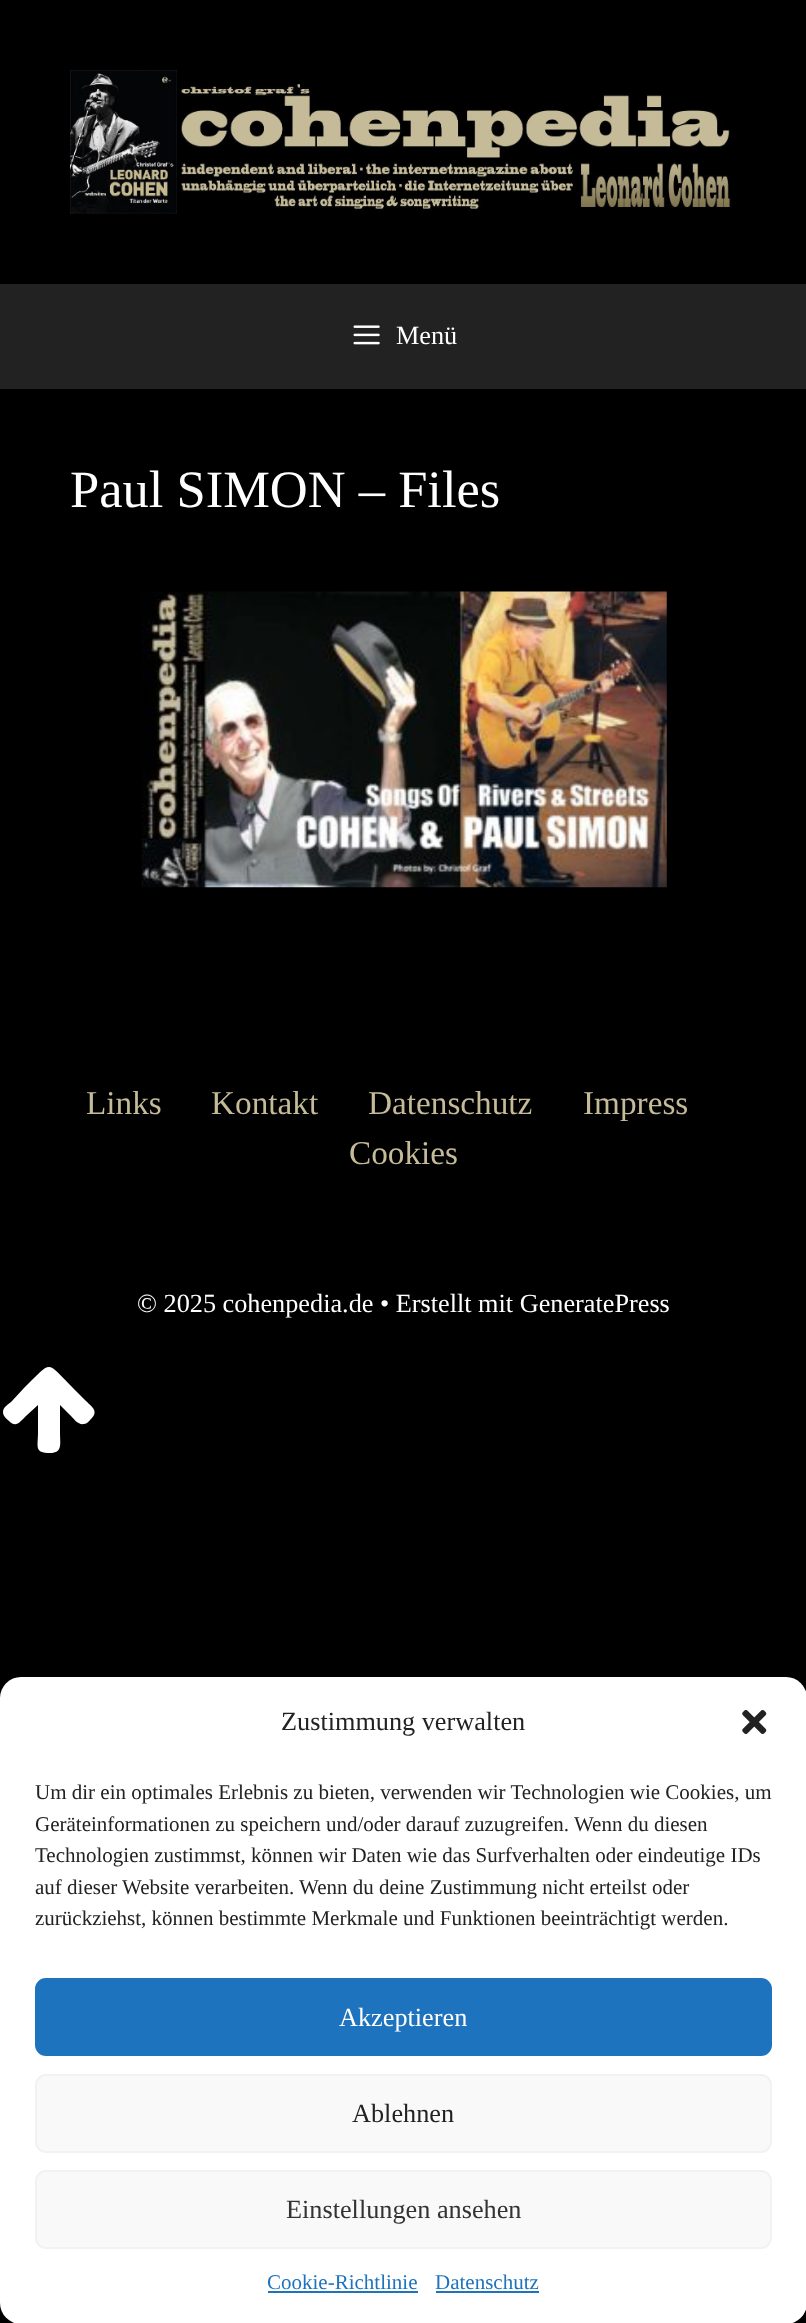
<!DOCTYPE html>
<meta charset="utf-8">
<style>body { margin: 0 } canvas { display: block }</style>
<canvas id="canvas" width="806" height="2323"></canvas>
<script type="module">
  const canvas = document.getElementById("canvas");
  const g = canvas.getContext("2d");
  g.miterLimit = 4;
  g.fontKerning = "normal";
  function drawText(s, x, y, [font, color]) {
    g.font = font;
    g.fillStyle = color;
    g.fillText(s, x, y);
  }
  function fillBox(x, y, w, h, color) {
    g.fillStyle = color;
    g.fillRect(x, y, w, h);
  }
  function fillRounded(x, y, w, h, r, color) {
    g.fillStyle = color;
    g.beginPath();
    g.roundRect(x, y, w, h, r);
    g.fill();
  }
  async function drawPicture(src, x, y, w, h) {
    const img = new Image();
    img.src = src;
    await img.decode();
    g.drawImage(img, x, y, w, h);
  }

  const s1 = ["26.25px Liberation Serif", "#FFFFFF"];
  const s2 = ["52.5px Liberation Serif", "#FFFFFF"];
  const s3 = ["33.25px Liberation Serif", "#C5BB98"];
  const s4 = ["26.25px Liberation Serif", "#222222"];
  const s5 = ["21px Liberation Serif", "#222222"];
  const s6 = ["26.25px Liberation Serif", "#333333"];
  const s7 = ["21px Liberation Serif", "#1E73BE"];

  fillBox(0, 0, 806, 2323, "#000000");
  await drawPicture("pic1.png", 70, 70, 662, 144);
  fillBox(0, 284, 806, 105, "#222222");
  await drawPicture("pic2.png", 353, 325, 27, 20);
  drawText("Menü", 396, 344, s1);
  drawText("Paul SIMON – Files", 70, 507, s2);
  await drawPicture("pic3.png", 141, 591, 526, 297);
  drawText("Links", 86, 1114, s3);
  drawText("Kontakt", 211, 1114, s3);
  drawText("Datenschutz", 368, 1114, s3);
  drawText("Impress", 583, 1114, s3);
  drawText("Cookies", 349, 1164, s3);
  drawText("© 2025 cohenpedia.de • Erstellt mit GeneratePress", 137, 1312, s1);
  g.beginPath();
  g.moveTo(3, 1412);
  g.bezierCurveTo(3, 1407, 9, 1404, 12, 1401);
  g.lineTo(24, 1388);
  g.bezierCurveTo(53, 1360, 45, 1360, 73, 1388);
  g.lineTo(86, 1401);
  g.bezierCurveTo(92, 1407, 99, 1411, 91, 1419);
  g.bezierCurveTo(89, 1421, 87, 1424, 84, 1424);
  g.bezierCurveTo(78, 1425, 75, 1420, 71, 1416);
  g.lineTo(60, 1405);
  g.lineTo(60, 1432);
  g.bezierCurveTo(60, 1444, 63, 1453, 50, 1453);
  g.bezierCurveTo(34, 1453, 38, 1447, 38, 1432);
  g.lineTo(38, 1405);
  g.lineTo(26, 1416);
  g.bezierCurveTo(20, 1422, 16, 1428, 9, 1421);
  g.bezierCurveTo(6, 1418, 3, 1416, 3, 1412);
  g.closePath();
  g.fill();
  fillRounded(0, 1677, 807, 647, 21, "#FFFFFF");
  drawText("Zustimmung verwalten", 281, 1730, s4);
  await drawPicture("pic4.png", 742, 1710, 25, 24);
  drawText("Um dir ein optimales Erlebnis zu bieten, verwenden wir Technologien wie Cookies, um", 35, 1799, s5);
  drawText("Geräteinformationen zu speichern und/oder darauf zuzugreifen. Wenn du diesen", 35, 1831, s5);
  drawText("Technologien zustimmst, können wir Daten wie das Surfverhalten oder eindeutige IDs", 35, 1862, s5);
  drawText("auf dieser Website verarbeiten. Wenn du deine Zustimmung nicht erteilst oder", 35, 1894, s5);
  drawText("zurückziehst, können bestimmte Merkmale und Funktionen beeinträchtigt werden.", 35, 1925, s5);
  g.fillStyle = "#1E73BE";
  g.beginPath();
  g.roundRect(36, 1979, 735, 76, 10);
  g.fill();
  g.strokeStyle = "#1E73BE";
  g.lineWidth = 2;
  g.stroke();
  drawText("Akzeptieren", 339, 2026, s1);
  g.fillStyle = "#F9F9F9";
  g.beginPath();
  g.roundRect(36, 2075, 735, 77, 10);
  g.fill();
  g.strokeStyle = "#F2F2F2";
  g.stroke();
  drawText("Ablehnen", 352, 2122, s4);
  g.fillStyle = "#F9F9F9";
  g.beginPath();
  g.roundRect(36, 2171, 735, 77, 10);
  g.fill();
  g.stroke();
  drawText("Einstellungen ansehen", 286, 2218, s6);
  drawText("Cookie-Richtlinie", 267, 2289, s7);
  fillBox(268, 2291, 150, 2, "#1E73BE");
  drawText("Datenschutz", 435, 2289, s7);
  fillBox(436, 2291, 103, 2, "#1E73BE");
</script>
